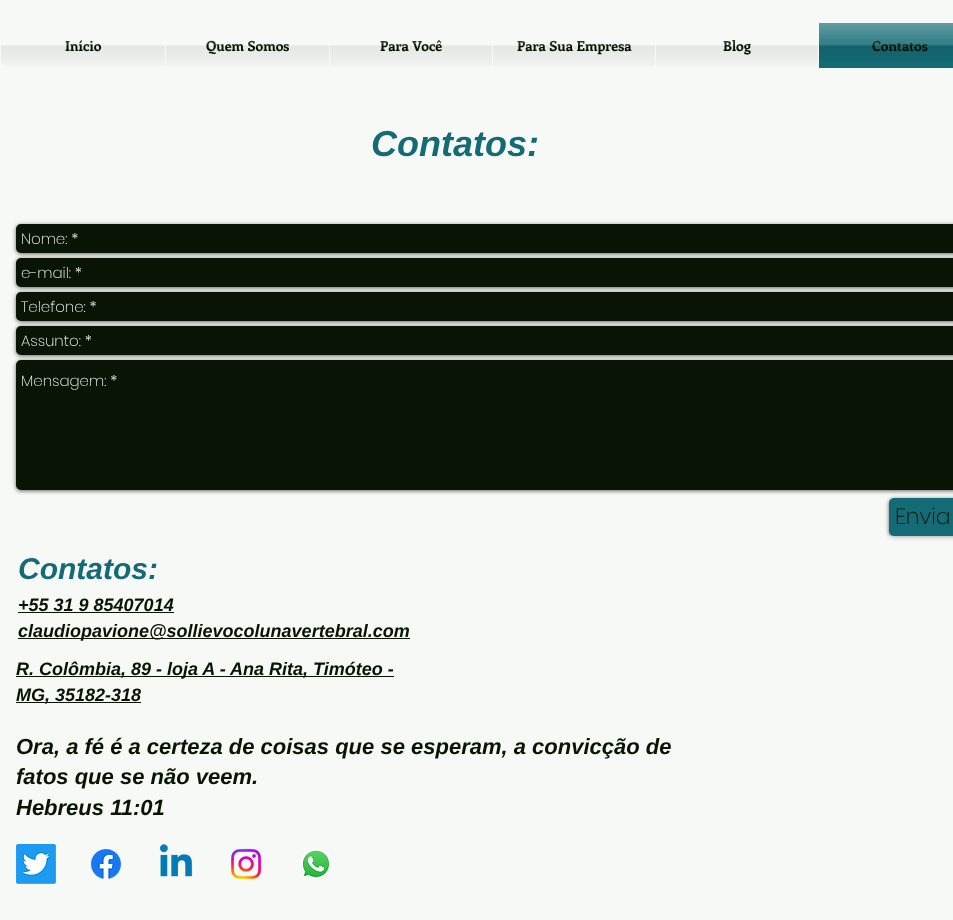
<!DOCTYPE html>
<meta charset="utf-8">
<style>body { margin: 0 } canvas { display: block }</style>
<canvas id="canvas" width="953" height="920"></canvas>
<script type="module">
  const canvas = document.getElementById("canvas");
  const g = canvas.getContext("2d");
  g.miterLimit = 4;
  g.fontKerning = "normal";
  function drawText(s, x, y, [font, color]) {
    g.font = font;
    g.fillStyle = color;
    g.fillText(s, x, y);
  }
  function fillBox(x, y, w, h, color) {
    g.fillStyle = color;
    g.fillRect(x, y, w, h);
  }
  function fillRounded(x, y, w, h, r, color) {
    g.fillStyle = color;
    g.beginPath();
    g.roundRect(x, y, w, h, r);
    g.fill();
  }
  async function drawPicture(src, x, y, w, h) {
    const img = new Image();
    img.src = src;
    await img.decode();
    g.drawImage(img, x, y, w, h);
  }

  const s1 = ["bold 14px Enriqueta", "#091405"];
  const s2 = ["italic bold 36px Liberation Sans", "#146B75"];
  const s3 = ["200 15px Poppins", "#F6F9F5"];
  const s4 = ["200 22px Poppins", "#091405"];
  const s5 = ["italic bold 30px Liberation Sans", "#146B75"];
  const s6 = ["italic bold 18px Liberation Sans", "#091405"];
  const s7 = ["italic bold 22px Liberation Sans", "#091405"];

  fillBox(0, 0, 953, 920, "#F6F9F5");
  await drawPicture("pic1.png", 1, 58, 2, 5);
  g.beginPath();
  g.roundRect(1, 23, 164, 45, [10, 0, 0, 10]);
  g.fill();
  drawText("Início", 65, 51, s1);
  await drawPicture("pic2.png", 1, 40, 164, 26);
  drawText("Quem Somos", 206, 51, s1);
  await drawPicture("pic3.png", 166, 40, 163, 26);
  drawText("Para Você", 380, 51, s1);
  await drawPicture("pic4.png", 330, 40, 162, 26);
  drawText("Para Sua Empresa", 517, 51, s1);
  await drawPicture("pic5.png", 493, 40, 162, 26);
  drawText("Blog", 723, 51, s1);
  await drawPicture("pic6.png", 656, 40, 162, 26);
  fillBox(819, 23, 134, 45, "#146B75");
  drawText("Contatos", 872, 51, s1);
  await drawPicture("pic7.png", 819, 23, 134, 39);
  drawText("Contatos:", 371, 156, s2);
  g.fillStyle = "rgba(0, 0, 0, 0.6)";
  g.filter = "blur(2px)";
  g.beginPath();
  g.roundRect(16, 225, 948, 29, 5);
  g.fill();
  g.filter = "none";
  fillRounded(16, 224, 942, 29, 5, "#091405");
  drawText("Nome: *", 21, 244, s3);
  g.fillStyle = "rgba(0, 0, 0, 0.6)";
  g.filter = "blur(2px)";
  g.beginPath();
  g.roundRect(16, 259, 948, 29, 5);
  g.fill();
  g.filter = "none";
  fillRounded(16, 258, 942, 29, 5, "#091405");
  drawText("e-mail: *", 21, 278, s3);
  g.fillStyle = "rgba(0, 0, 0, 0.6)";
  g.filter = "blur(2px)";
  g.beginPath();
  g.roundRect(16, 293, 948, 29, 5);
  g.fill();
  g.filter = "none";
  fillRounded(16, 292, 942, 29, 5, "#091405");
  drawText("Telefone: *", 21, 312, s3);
  g.fillStyle = "rgba(0, 0, 0, 0.6)";
  g.filter = "blur(2px)";
  g.beginPath();
  g.roundRect(16, 327, 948, 29, 5);
  g.fill();
  g.filter = "none";
  fillRounded(16, 326, 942, 29, 5, "#091405");
  drawText("Assunto: *", 21, 346, s3);
  g.fillStyle = "rgba(0, 0, 0, 0.6)";
  g.filter = "blur(2px)";
  g.beginPath();
  g.roundRect(16, 361, 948, 130, 5);
  g.fill();
  g.filter = "none";
  fillRounded(16, 360, 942, 130, 5, "#091405");
  drawText("Mensagem: *", 21, 386, s3);
  g.fillStyle = "rgba(0, 0, 0, 0.6)";
  g.filter = "blur(2px)";
  g.beginPath();
  g.roundRect(889, 499, 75, 38, 5);
  g.fill();
  g.filter = "none";
  fillRounded(889, 498, 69, 38, 5, "#146B75");
  drawText("Envia", 895, 524, s4);
  fillBox(887, 536, 66, 5, "rgba(246, 249, 245, 0.5)");
  drawText("Contatos:", 18, 579, s5);
  drawText("+55 31 9 85407014", 18, 611, s6);
  fillBox(18, 612, 156, 1, "#091405");
  fillBox(18, 638, 392, 1, "#091405");
  drawText("claudiopavione@sollievocolunavertebral.com", 18, 637, s6);
  fillBox(16, 676, 378, 1, "#091405");
  drawText("R. Colômbia, 89 - loja A - Ana Rita, Timóteo -", 16, 675, s6);
  fillBox(16, 702, 125, 1, "#091405");
  drawText("MG, 35182-318", 16, 701, s6);
  drawText("Ora, a fé é a certeza de coisas que se esperam, a convicção de", 16, 754, s7);
  drawText("fatos que se não veem.", 16, 784, s7);
  drawText("Hebreus 11:01", 16, 815, s7);
  await drawPicture("pic8.png", 16, 844, 40, 40);
  await drawPicture("pic9.png", 90, 848, 32, 31);
  await drawPicture("pic10.png", 159, 844, 34, 33);
  await drawPicture("pic11.png", 231, 848, 31, 31);
  await drawPicture("pic12.png", 300, 848, 31, 31);
</script>
